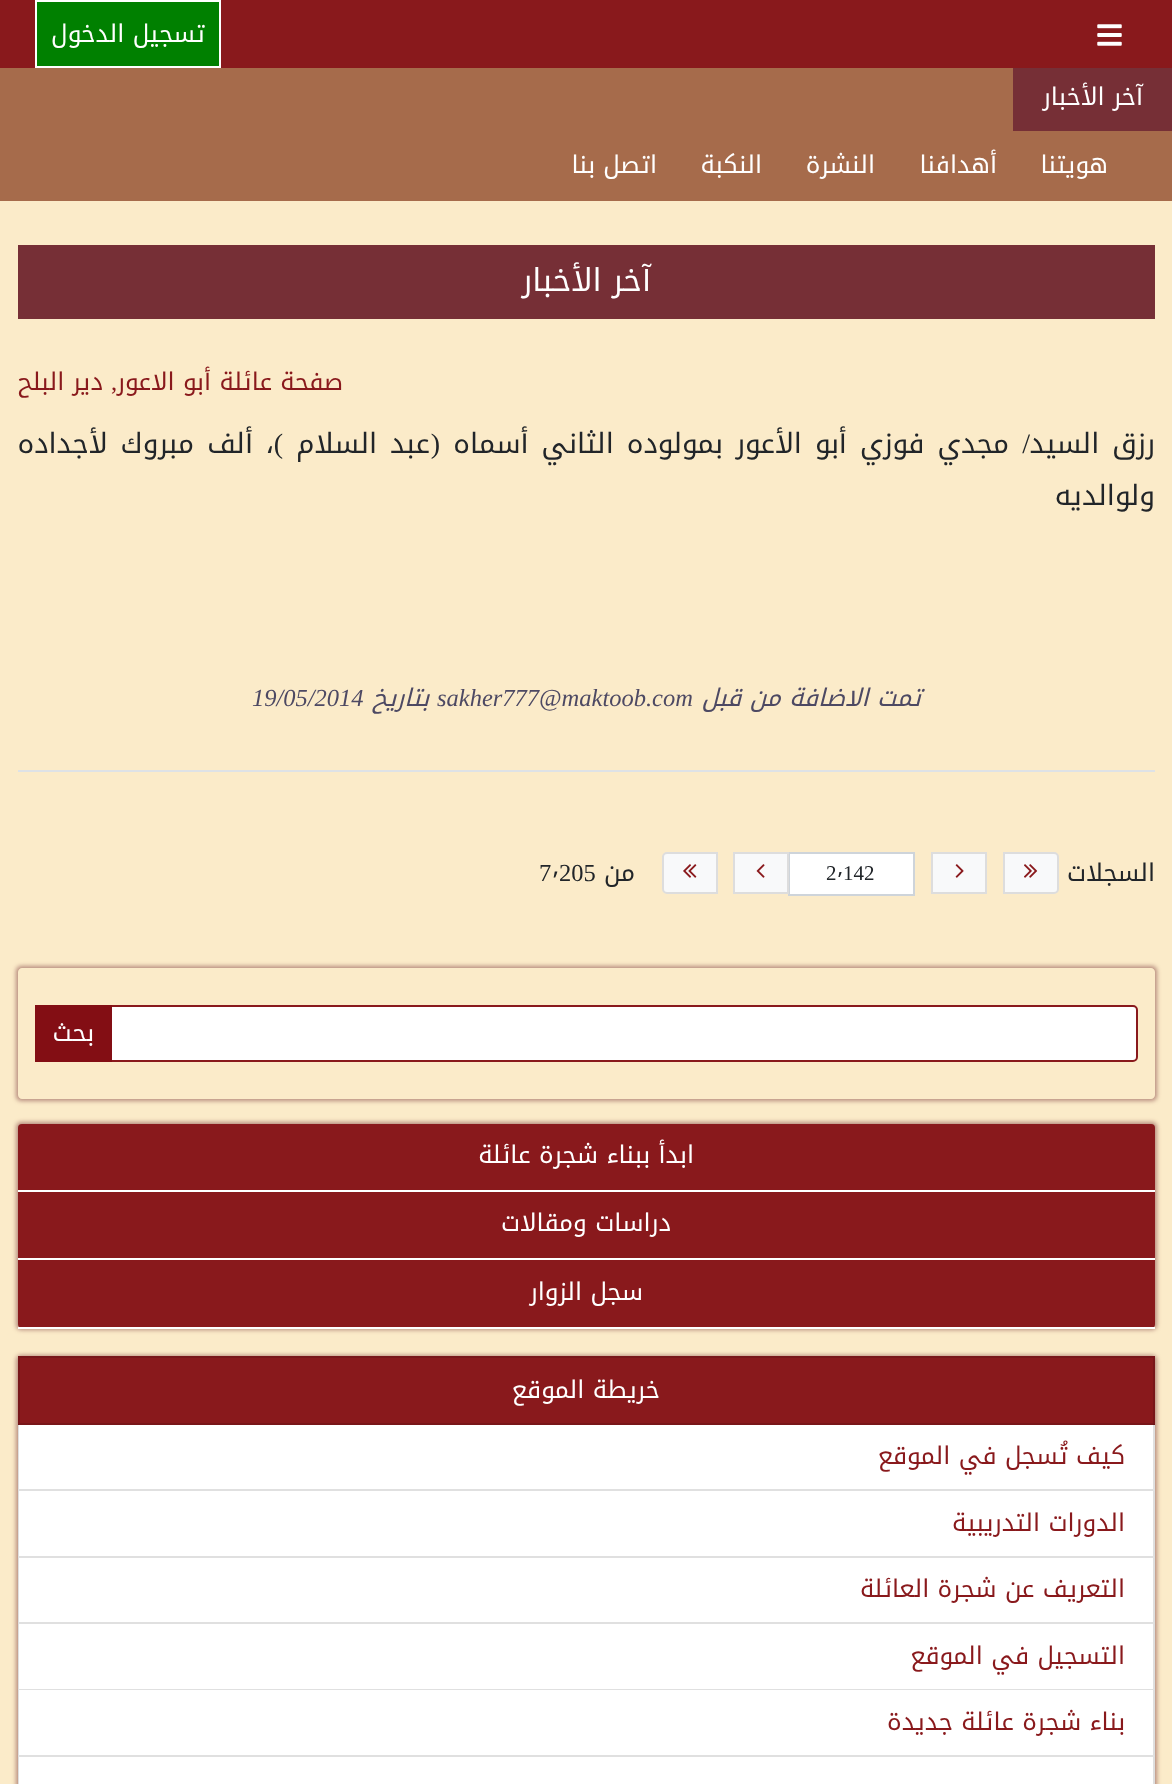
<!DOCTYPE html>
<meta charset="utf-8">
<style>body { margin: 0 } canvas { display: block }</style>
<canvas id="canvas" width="1172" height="1784"></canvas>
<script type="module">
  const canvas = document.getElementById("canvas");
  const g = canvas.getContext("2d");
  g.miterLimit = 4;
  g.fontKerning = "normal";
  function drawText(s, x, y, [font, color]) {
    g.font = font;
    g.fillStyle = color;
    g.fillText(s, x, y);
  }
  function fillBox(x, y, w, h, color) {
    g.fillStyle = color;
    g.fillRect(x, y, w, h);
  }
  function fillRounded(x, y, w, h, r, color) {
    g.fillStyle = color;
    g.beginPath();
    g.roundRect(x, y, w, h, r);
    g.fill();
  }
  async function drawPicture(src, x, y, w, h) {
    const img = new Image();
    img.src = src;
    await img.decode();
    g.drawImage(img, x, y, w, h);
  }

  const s1 = ["24.5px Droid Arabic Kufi", "#FFFFFF"];
  const s2 = ["31.5px Droid Arabic Kufi", "#FFFFFF"];
  const s3 = ["24.5px Droid Arabic Kufi", "#89191C"];
  const s4 = ["24.5px Liberation Serif", "#89191C"];
  const s5 = ["28px Droid Arabic Kufi", "#212529"];
  const s6 = ["28px Liberation Serif", "#212529"];
  const s7 = ["italic 24.5px Droid Arabic Kufi", "#4D4963"];
  const s8 = ["italic 24.5px Liberation Serif", "#4D4963"];
  const s9 = ["24.5px Droid Arabic Kufi", "#212529"];
  const s10 = ["21px Liberation Serif", "#212529"];
  const s11 = ["21px Droid Arabic Kufi", "#212529"];
  const s12 = ["24.5px Liberation Serif", "#212529"];

  fillBox(0, 0, 1172, 1784, "#FBEBC9");
  fillBox(0, 0, 1172, 68, "#89191C");
  await drawPicture("pic1.png", 1097, 24, 25, 22);
  g.fillStyle = "#008000";
  g.beginPath();
  g.rect(36, 1, 184, 66);
  g.fill();
  g.strokeStyle = "#FFFFFF";
  g.lineWidth = 2;
  g.stroke();
  g.direction = "rtl";
  drawText("تسجيل الدخول", 205, 42, s1);
  fillBox(0, 68, 1013, 63, "#A66B4B");
  fillBox(1013, 68, 159, 63, "#762F36");
  drawText("آخر الأخبار", 1143, 105, s1);
  fillBox(0, 131, 1172, 70, "#A66B4B");
  drawText("هويتنا", 1108, 173, s1);
  drawText("أهدافنا", 997, 173, s1);
  drawText("النشرة", 875, 173, s1);
  drawText("النكبة", 762, 173, s1);
  drawText("اتصل بنا", 657, 173, s1);
  fillBox(18, 245, 1137, 74, "#762F36");
  drawText("آخر الأخبار", 651, 291, s2);
  fillBox(18, 770, 1137, 2, "#DEE2E6");
  drawText("صفحة عائلة", 343, 390, s3);
  drawText("أبو الاعور", 211, 390, s3);
  drawText(",", 117, 390, s4);
  drawText("دير البلح", 103, 390, s3);
  g.wordSpacing = "3.5px";
  drawText("رزق السيد", 1155, 453, s5);
  g.wordSpacing = "0px";
  drawText("/", 1030, 453, s6);
  g.wordSpacing = "3.5px";
  drawText("مجدي فوزي أبو الأعور بمولوده الثاني أسماه", 1009, 453, s5);
  g.wordSpacing = "0px";
  drawText("(", 440, 453, s6);
  g.wordSpacing = "3.5px";
  drawText("عبد السلام", 430, 453, s5);
  g.wordSpacing = "0px";
  drawText(")", 283, 453, s6);
  g.wordSpacing = "3.5px";
  drawText("، ألف مبروك لأجداده", 274, 453, s5);
  g.wordSpacing = "0px";
  drawText("ولوالديه", 1155, 505, s5);
  drawText("تمت الاضافة من قبل", 921, 706, s7);
  g.direction = "ltr";
  drawText("sakher777@maktoob.com", 437, 706, s8);
  g.direction = "rtl";
  drawText("بتاريخ", 429, 706, s7);
  g.direction = "ltr";
  drawText("19/05/2014", 252, 706, s8);
  g.direction = "rtl";
  drawText("السجلات", 1155, 881, s9);
  g.fillStyle = "#F8F9FA";
  g.beginPath();
  g.roundRect(1004, 853, 54, 40, [0, 4, 4, 0]);
  g.fill();
  g.strokeStyle = "#DDDDDD";
  g.stroke();
  await drawPicture("pic2.png", 1024, 864, 14, 14);
  g.beginPath();
  g.rect(932, 853, 54, 40);
  g.fill();
  g.stroke();
  await drawPicture("pic3.png", 955, 864, 9, 14);
  g.fillStyle = "#FFFFFF";
  g.beginPath();
  g.rect(789, 853, 125, 42);
  g.fill();
  g.strokeStyle = "#CED4DA";
  g.stroke();
  g.direction = "ltr";
  drawText("142", 843, 880, s10);
  drawText("٬", 837, 880, s11);
  drawText("2", 826, 880, s10);
  g.fillStyle = "#F8F9FA";
  g.beginPath();
  g.rect(734, 853, 54, 40);
  g.fill();
  g.strokeStyle = "#DDDDDD";
  g.stroke();
  await drawPicture("pic4.png", 756, 864, 9, 14);
  g.beginPath();
  g.roundRect(663, 853, 54, 40, [4, 0, 0, 4]);
  g.fill();
  g.stroke();
  await drawPicture("pic5.png", 683, 864, 14, 14);
  g.direction = "rtl";
  drawText("من", 635, 881, s9);
  g.direction = "ltr";
  drawText("205", 559, 881, s12);
  drawText("٬", 552, 881, s9);
  drawText("7", 539, 881, s12);
  g.save();
  g.beginPath();
  g.moveTo(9, 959);
  g.lineTo(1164, 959);
  g.lineTo(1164, 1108);
  g.lineTo(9, 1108);
  g.closePath();
  g.moveTo(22, 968);
  g.lineTo(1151, 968);
  g.bezierCurveTo(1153, 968, 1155, 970, 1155, 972);
  g.lineTo(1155, 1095);
  g.bezierCurveTo(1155, 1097, 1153, 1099, 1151, 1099);
  g.lineTo(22, 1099);
  g.bezierCurveTo(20, 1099, 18, 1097, 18, 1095);
  g.lineTo(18, 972);
  g.bezierCurveTo(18, 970, 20, 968, 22, 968);
  g.closePath();
  g.clip("evenodd");
  g.fillStyle = "rgba(118, 47, 54, 0.5)";
  g.filter = "blur(2px)";
  g.beginPath();
  g.roundRect(16, 966, 1141, 135, 5);
  g.fill();
  g.filter = "none";
  g.restore();
  g.fillStyle = "#FFFFFF";
  g.beginPath();
  g.roundRect(36, 1006, 1101, 55, 4);
  g.fill();
  g.strokeStyle = "#89191C";
  g.stroke();
  fillBox(35, 1005, 77, 57, "#830E14");
  g.direction = "rtl";
  drawText("بحث", 94, 1041, s1);
  g.fillStyle = "rgba(118, 47, 54, 0.5)";
  g.filter = "blur(2px)";
  g.beginPath();
  g.roundRect(16, 1122, 1141, 208, 5);
  g.fill();
  g.filter = "none";
  fillRounded(18, 1124, 1137, 204, 4, "#89191C");
  fillBox(18, 1190, 1137, 2, "#FFFFFF");
  drawText("ابدأ ببناء شجرة عائلة", 694, 1163, s1);
  fillBox(18, 1258, 1137, 2, "#FFFFFF");
  drawText("دراسات ومقالات", 671, 1231, s1);
  fillBox(18, 1327, 1137, 2, "#FFFFFF");
  drawText("سجل الزوار", 643, 1300, s1);
  g.fillStyle = "rgba(118, 47, 54, 0.5)";
  g.filter = "blur(2px)";
  g.beginPath();
  g.roundRect(16, 1355, 1141, 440, 5);
  g.fill();
  g.filter = "none";
  g.fillStyle = "#89191C";
  g.beginPath();
  g.rect(19, 1357, 1135, 67);
  g.fill();
  g.strokeStyle = "#781619";
  g.stroke();
  drawText("خريطة الموقع", 660, 1398, s1);
  fillBox(18, 1425, 1137, 332, "#FFFFFF");
  g.fillStyle = "rgba(0, 0, 0, 0.12)";
  g.beginPath();
  g.moveTo(1155, 1424);
  g.lineTo(1155, 1491);
  g.lineTo(1153, 1489);
  g.lineTo(1153, 1424);
  g.closePath();
  g.fill();
  g.beginPath();
  g.moveTo(1155, 1491);
  g.lineTo(18, 1491);
  g.lineTo(19, 1489);
  g.lineTo(1153, 1489);
  g.closePath();
  g.fill();
  g.beginPath();
  g.moveTo(18, 1491);
  g.lineTo(18, 1424);
  g.lineTo(19, 1424);
  g.lineTo(19, 1489);
  g.closePath();
  g.fill();
  drawText("كيف تُسجل في الموقع", 1125, 1464, s3);
  g.fillStyle = "#DFDFDF";
  g.beginPath();
  g.moveTo(1155, 1491);
  g.lineTo(1155, 1558);
  g.lineTo(1153, 1556);
  g.lineTo(1153, 1491);
  g.closePath();
  g.fill();
  g.fillStyle = "rgba(0, 0, 0, 0.12)";
  g.beginPath();
  g.moveTo(1155, 1558);
  g.lineTo(18, 1558);
  g.lineTo(19, 1556);
  g.lineTo(1153, 1556);
  g.closePath();
  g.fill();
  g.beginPath();
  g.moveTo(18, 1558);
  g.lineTo(18, 1491);
  g.lineTo(19, 1491);
  g.lineTo(19, 1556);
  g.closePath();
  g.fill();
  drawText("الدورات التدريبية", 1125, 1531, s3);
  g.fillStyle = "#DFDFDF";
  g.beginPath();
  g.moveTo(1155, 1558);
  g.lineTo(1155, 1624);
  g.lineTo(1153, 1622);
  g.lineTo(1153, 1558);
  g.closePath();
  g.fill();
  g.fillStyle = "rgba(0, 0, 0, 0.12)";
  g.beginPath();
  g.moveTo(1155, 1624);
  g.lineTo(18, 1624);
  g.lineTo(19, 1622);
  g.lineTo(1153, 1622);
  g.closePath();
  g.fill();
  g.beginPath();
  g.moveTo(18, 1624);
  g.lineTo(18, 1558);
  g.lineTo(19, 1558);
  g.lineTo(19, 1622);
  g.closePath();
  g.fill();
  drawText("التعريف عن شجرة العائلة", 1125, 1597, s3);
  g.fillStyle = "#DFDFDF";
  g.beginPath();
  g.moveTo(1155, 1624);
  g.lineTo(1155, 1690);
  g.lineTo(1153, 1689);
  g.lineTo(1153, 1624);
  g.closePath();
  g.fill();
  g.fillStyle = "rgba(0, 0, 0, 0.12)";
  g.beginPath();
  g.moveTo(1155, 1690);
  g.lineTo(18, 1690);
  g.lineTo(19, 1689);
  g.lineTo(1153, 1689);
  g.closePath();
  g.fill();
  g.beginPath();
  g.moveTo(18, 1690);
  g.lineTo(18, 1624);
  g.lineTo(19, 1624);
  g.lineTo(19, 1689);
  g.closePath();
  g.fill();
  drawText("التسجيل في الموقع", 1125, 1664, s3);
  g.fillStyle = "#DFDFDF";
  g.beginPath();
  g.moveTo(1155, 1690);
  g.lineTo(1155, 1757);
  g.lineTo(1153, 1755);
  g.lineTo(1153, 1690);
  g.closePath();
  g.fill();
  g.fillStyle = "rgba(0, 0, 0, 0.12)";
  g.beginPath();
  g.moveTo(1155, 1757);
  g.lineTo(18, 1757);
  g.lineTo(19, 1755);
  g.lineTo(1153, 1755);
  g.closePath();
  g.fill();
  g.beginPath();
  g.moveTo(18, 1757);
  g.lineTo(18, 1690);
  g.lineTo(19, 1690);
  g.lineTo(19, 1755);
  g.closePath();
  g.fill();
  drawText("بناء شجرة عائلة جديدة", 1125, 1730, s3);
  fillBox(19, 1757, 1134, 27, "#FFFFFF");
  g.fillStyle = "#DFDFDF";
  g.beginPath();
  g.moveTo(1155, 1757);
  g.lineTo(1155, 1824);
  g.lineTo(1153, 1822);
  g.lineTo(1153, 1757);
  g.closePath();
  g.fill();
  g.beginPath();
  g.moveTo(18, 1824);
  g.lineTo(18, 1757);
  g.lineTo(19, 1757);
  g.lineTo(19, 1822);
  g.closePath();
  g.fill();
</script>
